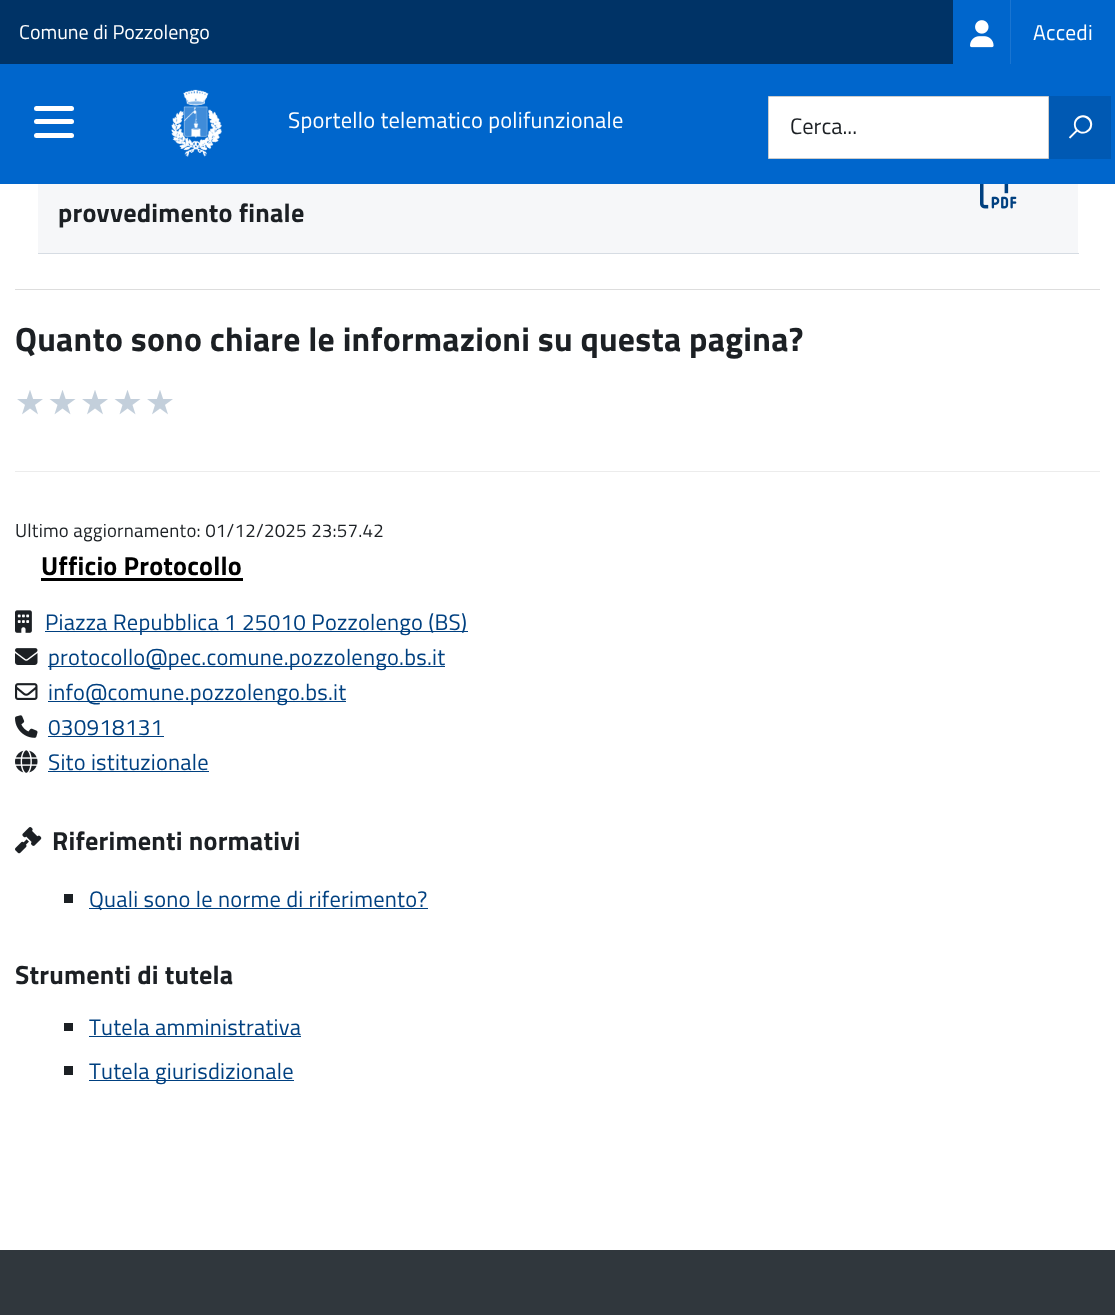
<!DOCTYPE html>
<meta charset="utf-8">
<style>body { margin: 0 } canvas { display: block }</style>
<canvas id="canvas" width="1115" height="1315"></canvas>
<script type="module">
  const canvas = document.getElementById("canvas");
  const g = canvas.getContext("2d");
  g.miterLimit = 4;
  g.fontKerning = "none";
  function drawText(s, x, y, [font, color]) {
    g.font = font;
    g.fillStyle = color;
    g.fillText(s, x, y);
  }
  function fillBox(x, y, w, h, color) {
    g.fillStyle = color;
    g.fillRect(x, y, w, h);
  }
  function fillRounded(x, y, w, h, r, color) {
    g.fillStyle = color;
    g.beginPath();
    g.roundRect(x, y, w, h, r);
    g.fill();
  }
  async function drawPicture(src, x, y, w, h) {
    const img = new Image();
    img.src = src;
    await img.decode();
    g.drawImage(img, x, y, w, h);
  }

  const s1 = ["20px Titillium Web", "#FFFFFF"];
  const s2 = ["21.5px Titillium Web", "#FFFFFF"];
  const s3 = ["22.5px Titillium Web", "#FFFFFF"];
  const s4 = ["bold 22.5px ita", "#FFFFFF"];
  const s5 = ["22.5px Titillium Web", "#1C2024"];
  const s6 = ["bold 26.25px Titillium Web", "#1C2024"];
  const s7 = ["bold 33.75px Titillium Web", "#1C2024"];
  const s8 = ["18.75px Titillium Web", "#1C2024"];
  const s9 = ["bold 26.25px Titillium Web", "#000000"];
  const s10 = ["22.5px Titillium Web", "#004080"];

  fillBox(0, 0, 1115, 1315, "#FFFFFF");
  fillBox(0, 0, 953, 64, "#003366");
  drawText("Comune di Pozzolengo", 19, 39, s1);
  fillBox(953, 0, 57, 64, "#0066CC");
  fillBox(1010, 0, 1, 64, "#1A75D1");
  await drawPicture("pic1.png", 970, 20, 24, 28);
  fillBox(1011, 0, 104, 64, "#0066CC");
  g.letterSpacing = "0.22px";
  drawText("Accedi", 1033, 40, s2);
  fillBox(0, 64, 1115, 120, "#0066CC");
  fillRounded(34, 119, 40, 5, 2.5, "#FFFFFF");
  fillRounded(34, 106, 40, 5, 2.5, "#FFFFFF");
  fillRounded(34, 133, 40, 5, 2.5, "#FFFFFF");
  await drawPicture("pic2.png", 171, 89, 51, 68);
  drawText("Sportello telematico polifunzionale", 288, 128, s3);
  g.beginPath();
  g.rect(768.5, 96.5, 280, 62);
  g.fill();
  g.strokeStyle = "#CCCCCC";
  g.stroke();
  fillBox(1049, 96, 62, 63, "#0059B3");
  g.letterSpacing = "0px";
  drawText("🔍", 1069, 137, s4);
  drawText("Cerca...", 790, 134, s5);
  fillBox(15, 289, 1085, 1, "#DDDDDD");
  fillBox(38, 184, 1040, 69, "#F6F7F9");
  fillBox(38, 253, 1041, 1, "#D6DCE3");
  await drawPicture("pic3.png", 980, 184, 37, 25);
  g.letterSpacing = "0.2px";
  drawText("provvedimento finale", 58, 222, s6);
  g.letterSpacing = "0.22px";
  drawText("Quanto sono chiare le informazioni su questa pagina?", 15, 351, s7);
  await drawPicture("pic4.png", 17, 390, 26, 25);
  await drawPicture("pic5.png", 49, 390, 27, 25);
  await drawPicture("pic4.png", 82, 390, 26, 25);
  await drawPicture("pic5.png", 114, 390, 27, 25);
  await drawPicture("pic4.png", 147, 390, 26, 25);
  fillBox(15, 471, 1085, 1, "#ECECEC");
  drawText("Ultimo aggiornamento: 01/12/2025 23:57.42", 15, 537, s8);
  g.letterSpacing = "0.2px";
  drawText("Ufficio Protocollo", 41, 575, s9);
  fillBox(41, 578, 202, 3, "#000000");
  await drawPicture("pic6.png", 15, 610, 17, 23);
  fillBox(45, 631, 423, 1, "#004080");
  g.letterSpacing = "0.22px";
  drawText("Piazza Repubblica 1 25010 Pozzolengo (BS)", 45, 630, s10);
  await drawPicture("pic7.png", 15, 648, 23, 17);
  fillBox(48, 666, 397, 1, "#004080");
  drawText("protocollo@pec.comune.pozzolengo.bs.it", 48, 665, s10);
  await drawPicture("pic8.png", 15, 683, 23, 17);
  fillBox(48, 701, 298, 1, "#004080");
  drawText("info@comune.pozzolengo.bs.it", 48, 700, s10);
  await drawPicture("pic9.png", 15, 715, 23, 23);
  drawText("030918131", 48, 735, s10);
  fillBox(48, 736, 116, 1, "#004080");
  await drawPicture("pic10.png", 15, 750, 23, 23);
  drawText("Sito istituzionale", 48, 770, s10);
  fillBox(48, 771, 161, 1, "#004080");
  await drawPicture("pic11.png", 15, 827, 27, 27);
  g.letterSpacing = "0.2px";
  drawText("Riferimenti normativi", 52, 850, s6);
  fillBox(64, 894, 9, 9, "#1C2024");
  fillBox(89, 908, 339, 1, "#004080");
  g.letterSpacing = "0.22px";
  drawText("Quali sono le norme di riferimento?", 89, 907, s10);
  g.letterSpacing = "0.2px";
  drawText("Strumenti di tutela", 15, 984, s6);
  fillBox(64, 1023, 9, 8, "#1C2024");
  g.letterSpacing = "0.22px";
  drawText("Tutela amministrativa", 89, 1035, s10);
  fillBox(89, 1036, 212, 1, "#004080");
  fillBox(64, 1066, 9, 9, "#1C2024");
  fillBox(89, 1080, 205, 1, "#004080");
  drawText("Tutela giurisdizionale", 89, 1079, s10);
  fillBox(0, 1250, 1115, 65, "#30373D");
</script>
